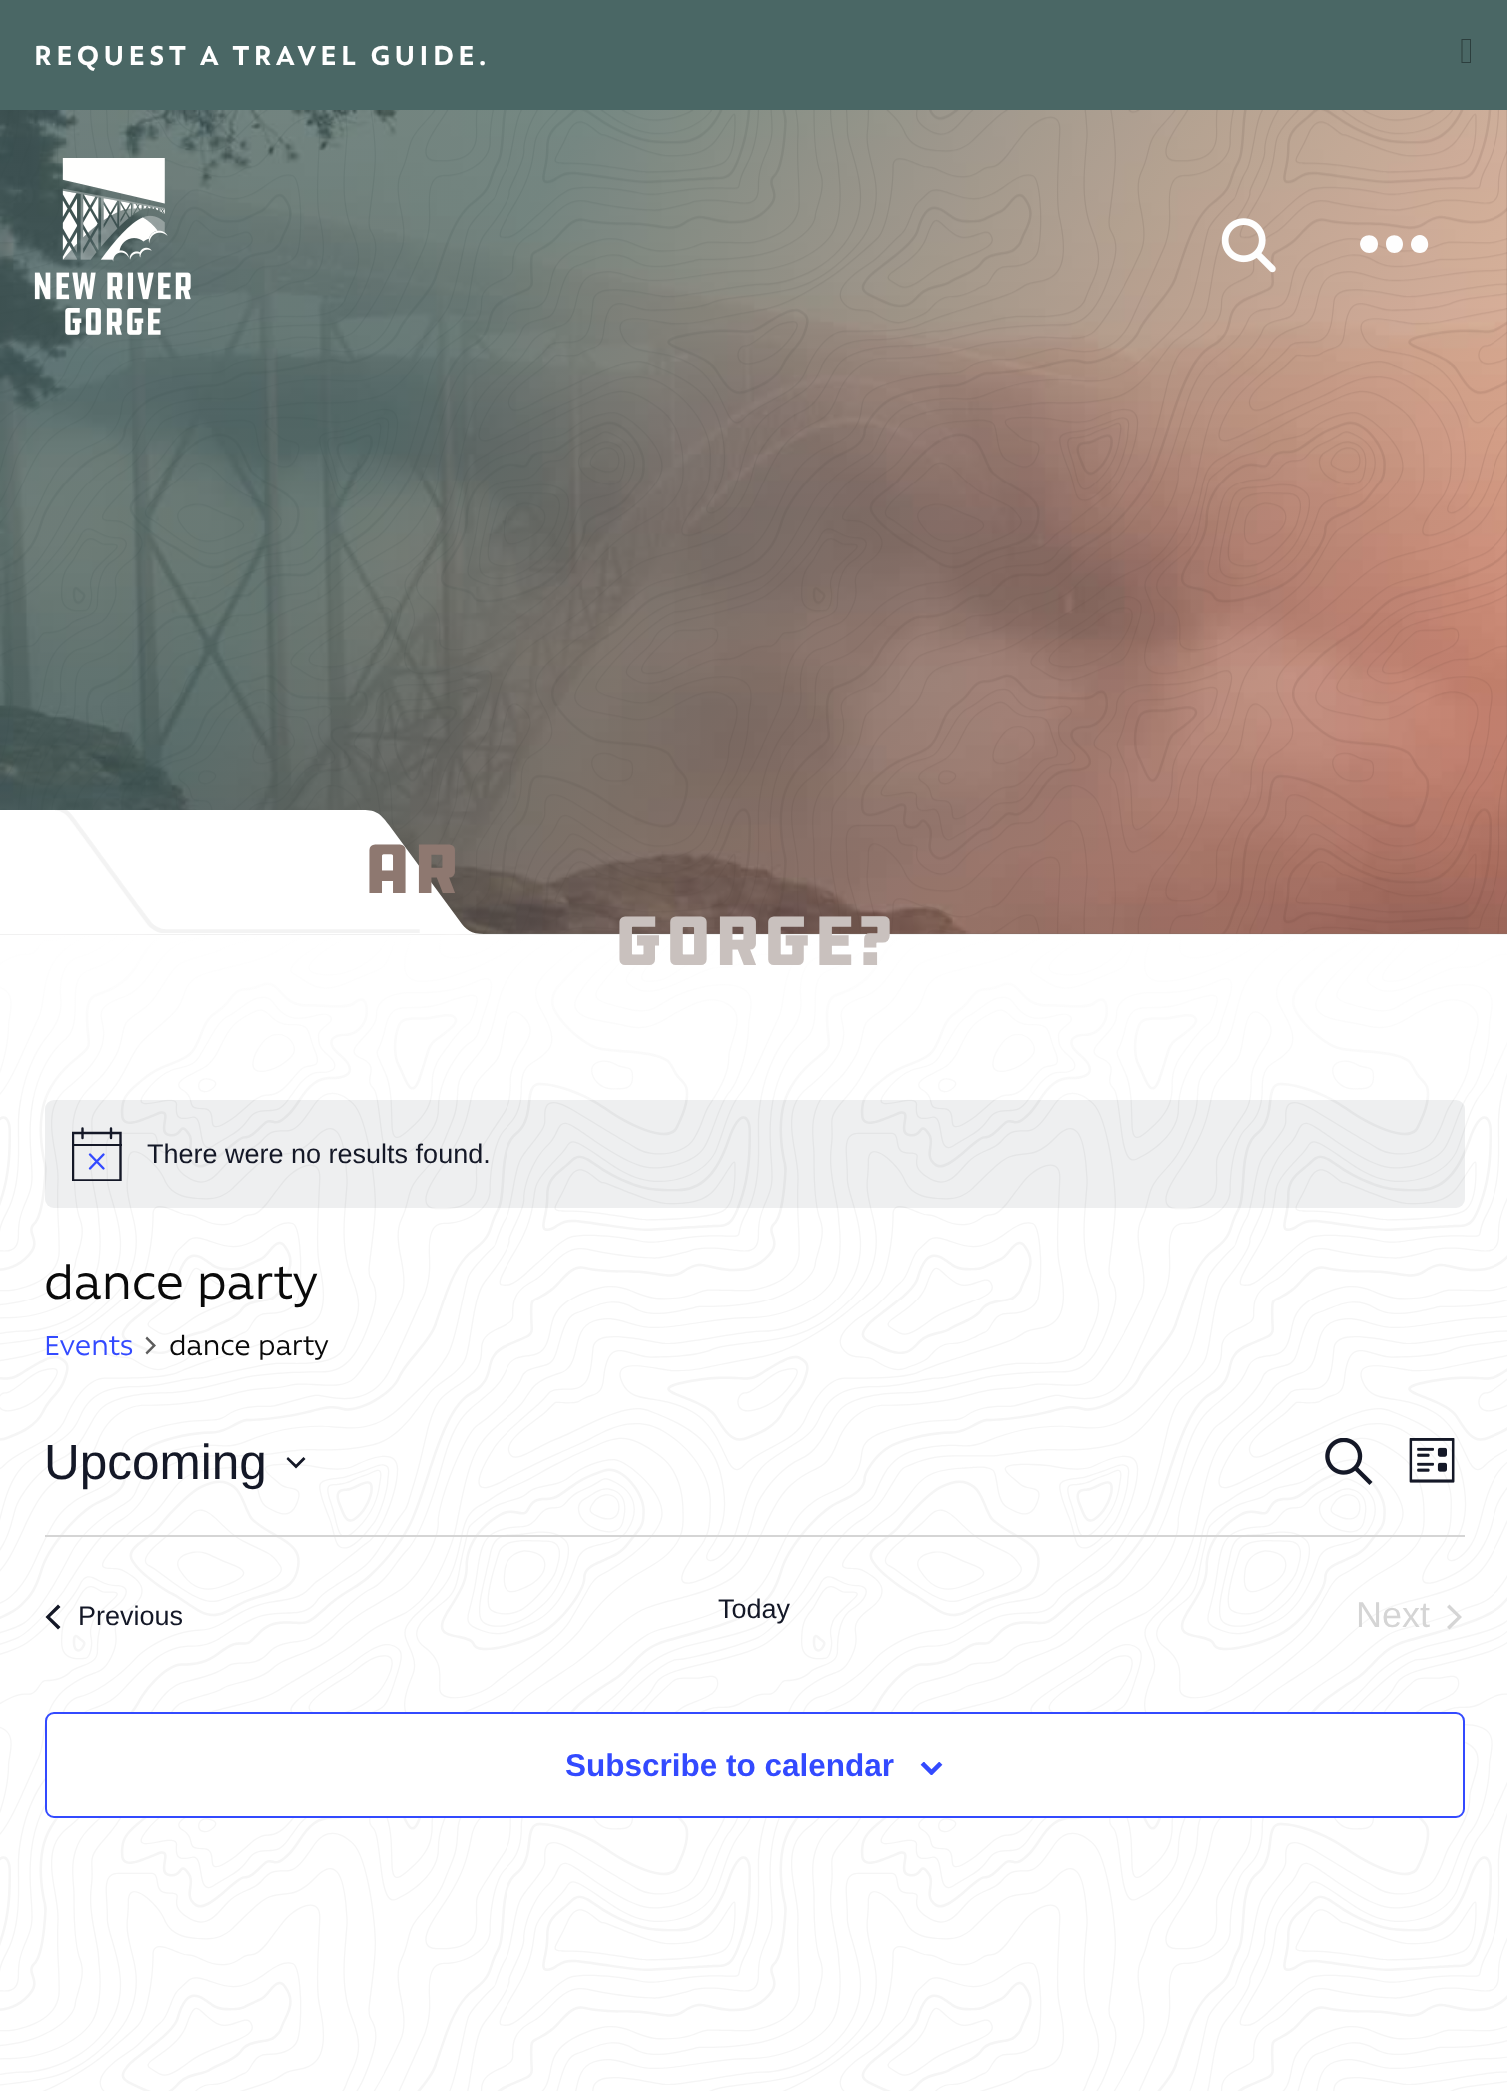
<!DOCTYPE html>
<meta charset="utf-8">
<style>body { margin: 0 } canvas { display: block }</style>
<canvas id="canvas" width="1507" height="2091"></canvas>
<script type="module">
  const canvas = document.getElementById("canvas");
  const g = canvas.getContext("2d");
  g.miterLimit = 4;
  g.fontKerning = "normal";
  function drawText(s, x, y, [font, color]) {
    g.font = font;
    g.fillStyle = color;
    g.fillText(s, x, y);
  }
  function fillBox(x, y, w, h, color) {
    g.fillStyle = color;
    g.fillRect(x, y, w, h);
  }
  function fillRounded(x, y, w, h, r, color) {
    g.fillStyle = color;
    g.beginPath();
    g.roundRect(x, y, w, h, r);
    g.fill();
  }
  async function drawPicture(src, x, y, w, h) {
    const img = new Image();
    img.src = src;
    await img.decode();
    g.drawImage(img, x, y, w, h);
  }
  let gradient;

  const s1 = ["bold 31.5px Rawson", "#FFFFFF"];
  const s2 = ["27px Liberation Sans", "#141827"];
  const s3 = ["54px Rawson", "#0A0A0A"];
  const s4 = ["31.5px Rawson", "#334AFF"];
  const s5 = ["31.5px Rawson", "#0A0A0A"];
  const s6 = ["49.5px Liberation Sans", "#141827"];
  const s7 = ["36px Liberation Sans", "#D5D5D5"];
  const s8 = ["bold 31.5px Liberation Sans", "#334AFF"];
  const s9 = ["72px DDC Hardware", "#8E7870"];
  const s10 = ["72px DDC Hardware", "#C9C1BE"];

  fillBox(0, 0, 1507, 2091, "#FFFFFF");
  await drawPicture("pic1.png", 0, 935, 1507, 1156);
  fillBox(0, 0, 1507, 110, "#4A6765");
  g.letterSpacing = "4.5px";
  drawText("REQUEST A TRAVEL GUIDE.", 34, 65, s1);
  g.fillStyle = "#2C3E3D";
  g.beginPath();
  g.moveTo(1461.5, 63);
  g.lineTo(1461.5, 39);
  g.lineTo(1471, 39);
  g.lineTo(1471, 63);
  g.closePath();
  g.moveTo(1462.5, 62);
  g.lineTo(1470, 62);
  g.lineTo(1470, 40);
  g.lineTo(1462.5, 40);
  g.closePath();
  g.fill();
  fillBox(475, 110, 1032, 824, "#4A6765");
  await drawPicture("pic2.png", 0, 110, 1507, 825);
  await drawPicture("pic3.png", 0, 110, 1507, 824);
  gradient = g.createLinearGradient(42, 47, 1465, 997);
  gradient.addColorStop(0.29, "rgba(74, 103, 101, 0.7)");
  gradient.addColorStop(0.91, "rgba(209, 122, 102, 0.45)");
  g.fillStyle = gradient;
  g.fillRect(0, 110, 1507, 824);
  await drawPicture("pic4.png", 34, 158, 157, 177);
  await drawPicture("pic5.png", 1221, 218, 55, 55);
  g.fillStyle = "#FEFEFE";
  g.beginPath();
  g.moveTo(1360, 244);
  g.bezierCurveTo(1361, 232, 1378, 233, 1378, 244);
  g.bezierCurveTo(1378, 256, 1361, 256, 1360, 244);
  g.closePath();
  g.moveTo(1386, 244);
  g.bezierCurveTo(1386, 232, 1403, 233, 1403, 244);
  g.bezierCurveTo(1403, 256, 1386, 256, 1386, 244);
  g.closePath();
  g.moveTo(1420, 235);
  g.bezierCurveTo(1431, 236, 1431, 253, 1420, 253);
  g.bezierCurveTo(1408, 253, 1408, 236, 1420, 235);
  g.closePath();
  g.fill();
  g.fillStyle = "#FFFFFF";
  g.beginPath();
  g.moveTo(360, 810);
  g.lineTo(-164, 810);
  g.lineTo(-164, 934);
  g.lineTo(484, 934);
  g.bezierCurveTo(471, 934, 466, 930, 459, 920);
  g.lineTo(389, 825);
  g.bezierCurveTo(379, 812, 376, 810, 360, 810);
  g.closePath();
  g.fill();
  await drawPicture("pic6.png", 55, 810, 365, 123);
  gradient = g.createLinearGradient(754, 934, 754, 1159);
  gradient.addColorStop(0, "#FFFFFF");
  gradient.addColorStop(1, "rgba(255, 255, 255, 0)");
  g.fillStyle = gradient;
  g.fillRect(0, 935, 1507, 165);
  fillRounded(45, 1100, 1420, 108, 9, "rgba(20, 24, 39, 0.07)");
  g.save();
  g.beginPath();
  g.rect(72, 1127, 50, 54);
  g.clip();
  g.beginPath();
  g.moveTo(73, 1133);
  g.lineTo(120.5, 1133);
  g.lineTo(120.5, 1180.5);
  g.lineTo(73, 1180.5);
  g.closePath();
  g.strokeStyle = "#141827";
  g.lineWidth = 2.4;
  g.stroke();
  g.restore();
  g.beginPath();
  g.moveTo(90, 1154.5);
  g.lineTo(103.5, 1168.5);
  g.moveTo(103.5, 1154.5);
  g.lineTo(90, 1168.5);
  g.strokeStyle = "#334AFF";
  g.lineWidth = 2.4;
  g.lineCap = "round";
  g.stroke();
  g.beginPath();
  g.moveTo(82.5, 1128.5);
  g.lineTo(82.5, 1138);
  g.moveTo(111, 1128.5);
  g.lineTo(111, 1138);
  g.strokeStyle = "#141827";
  g.stroke();
  fillBox(72, 1144, 50, 2, "#141827");
  g.letterSpacing = "0px";
  drawText("There were no results found.", 147, 1163, s2);
  drawText("dance party", 44, 1299, s3);
  drawText("Events", 44, 1355, s4);
  g.fillStyle = "#5D5D5D";
  g.beginPath();
  g.moveTo(145.5, 1338.5);
  g.lineTo(147, 1336.5);
  g.lineTo(156, 1345.5);
  g.lineTo(147, 1354.5);
  g.lineTo(145.5, 1352.5);
  g.lineTo(152.5, 1345.5);
  g.closePath();
  g.fill();
  drawText("dance party", 169, 1355, s5);
  drawText("Upcoming", 44, 1479, s6);
  g.beginPath();
  g.moveTo(288, 1457);
  g.lineTo(296, 1464.5);
  g.lineTo(303.5, 1457);
  g.lineTo(305.5, 1459);
  g.lineTo(296, 1468.5);
  g.lineTo(286.5, 1459);
  g.closePath();
  g.fill("evenodd");
  await drawPicture("pic7.png", 1325, 1438, 48, 47);
  await drawPicture("pic8.png", 1409, 1438, 46, 45);
  fillBox(45, 1535, 1420, 2, "#D5D5D5");
  g.fillStyle = "#141827";
  g.beginPath();
  g.moveTo(60.5, 1627);
  g.lineTo(58, 1629.5);
  g.lineTo(45.5, 1617);
  g.lineTo(58, 1604.5);
  g.lineTo(60.5, 1607);
  g.lineTo(50, 1617);
  g.closePath();
  g.fill();
  drawText("Previous", 78, 1625, s2);
  drawText("Today", 718, 1618, s2);
  drawText("Next", 1356, 1627, s7);
  g.beginPath();
  g.moveTo(1447, 1607);
  g.lineTo(1449.5, 1604.5);
  g.lineTo(1462, 1617);
  g.lineTo(1449.5, 1629.5);
  g.lineTo(1447, 1627);
  g.lineTo(1457.5, 1617);
  g.closePath();
  g.fill();
  g.fillStyle = "#FFFFFF";
  g.beginPath();
  g.roundRect(46, 1713, 1418, 104, 8);
  g.fill();
  g.strokeStyle = "#334AFF";
  g.lineWidth = 2;
  g.stroke();
  drawText("Subscribe to calendar", 565, 1776, s8);
  await drawPicture("pic9.png", 920, 1762, 23, 13);
  drawText("Ar", 363, 893, s9);
  drawText("Gorge?", 613, 965, s10);
</script>
